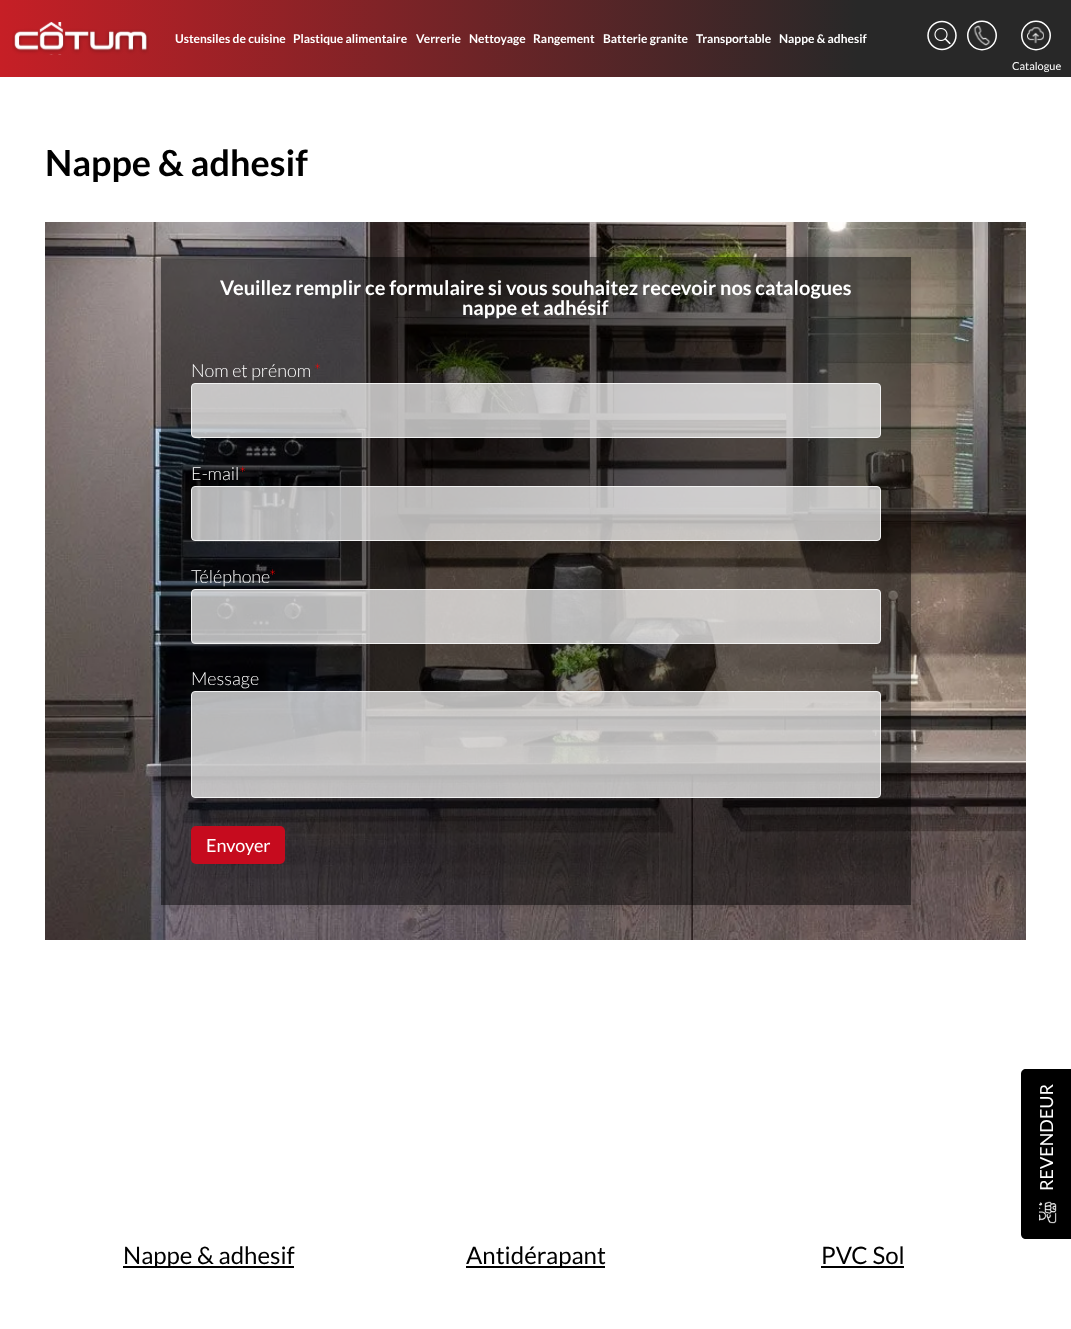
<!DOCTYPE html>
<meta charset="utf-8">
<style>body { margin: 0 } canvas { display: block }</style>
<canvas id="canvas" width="1071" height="1329"></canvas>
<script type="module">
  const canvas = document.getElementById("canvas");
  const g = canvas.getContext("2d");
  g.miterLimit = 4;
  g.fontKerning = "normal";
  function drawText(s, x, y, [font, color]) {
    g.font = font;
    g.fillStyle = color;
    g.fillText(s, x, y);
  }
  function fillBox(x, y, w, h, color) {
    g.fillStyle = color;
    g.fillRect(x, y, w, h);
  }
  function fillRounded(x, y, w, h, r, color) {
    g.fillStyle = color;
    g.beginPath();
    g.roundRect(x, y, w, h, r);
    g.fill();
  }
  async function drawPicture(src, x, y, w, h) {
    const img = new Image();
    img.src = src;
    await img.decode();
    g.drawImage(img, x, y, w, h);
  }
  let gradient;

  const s1 = ["bold 12px Lato", "#FFFFFF"];
  const s2 = ["11px Lato", "#FFFFFF"];
  const s3 = ["bold 36px Lato", "#000000"];
  const s4 = ["bold 20px Lato", "#FFFFFF"];
  const s5 = ["300 18px Lato", "#FFFFFF"];
  const s6 = ["300 18px Lato", "#FF0000"];
  const s7 = ["18px Lato", "#FFFFFF"];
  const s8 = ["24px Lato", "#000000"];

  fillBox(0, 0, 1071, 1329, "#FFFFFF");
  gradient = g.createLinearGradient(0, 39, 1071, 38);
  gradient.addColorStop(0, "#C61F26");
  gradient.addColorStop(0.8, "#282828");
  g.fillStyle = gradient;
  g.fillRect(0, 0, 1071, 77);
  await drawPicture("pic1.png", 12, 22, 137, 33);
  drawText("Ustensiles de cuisine", 175, 43, s1);
  drawText("Plastique alimentaire", 293, 43, s1);
  drawText("Verrerie", 416, 43, s1);
  drawText("Nettoyage", 469, 43, s1);
  drawText("Rangement", 533, 43, s1);
  drawText("Batterie granite", 603, 43, s1);
  drawText("Transportable", 696, 43, s1);
  drawText("Nappe & adhesif", 779, 43, s1);
  await drawPicture("pic2.png", 927, 20, 30, 31);
  await drawPicture("pic3.png", 967, 20, 30, 31);
  await drawPicture("pic4.png", 1021, 20, 30, 31);
  drawText("Catalogue", 1012, 70, s2);
  drawText("Nappe & adhesif", 45, 176, s3);
  await drawPicture("pic5.png", 45, 222, 981, 718);
  g.save();
  g.beginPath();
  g.moveTo(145, 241);
  g.lineTo(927, 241);
  g.lineTo(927, 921);
  g.lineTo(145, 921);
  g.closePath();
  g.moveTo(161, 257);
  g.lineTo(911, 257);
  g.lineTo(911, 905);
  g.lineTo(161, 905);
  g.closePath();
  g.clip("evenodd");
  g.fillStyle = "rgba(0, 0, 0, 0.15)";
  g.filter = "blur(5px)";
  g.beginPath();
  g.rect(161, 257, 750, 648);
  g.fill();
  g.filter = "none";
  g.restore();
  fillBox(161, 257, 750, 648, "rgba(0, 0, 0, 0.5)");
  drawText("Veuillez remplir ce formulaire si vous souhaitez recevoir nos catalogues", 220, 295, s4);
  drawText("nappe et adhésif", 462, 315, s4);
  drawText("Nom et prénom", 191, 377, s5);
  drawText("*", 314, 377, s6);
  g.fillStyle = "rgba(255, 255, 255, 0.7)";
  g.beginPath();
  g.roundRect(191.5, 383.5, 689, 54, 3.5);
  g.fill();
  g.strokeStyle = "#F2F2F2";
  g.stroke();
  drawText("E-mail", 191, 480, s5);
  drawText("*", 239, 480, s6);
  g.fillStyle = "rgba(255, 255, 255, 0.7)";
  g.beginPath();
  g.roundRect(191.5, 486.5, 689, 54, 3.5);
  g.fill();
  g.stroke();
  drawText("Téléphone", 191, 583, s5);
  drawText("*", 269, 583, s6);
  g.fillStyle = "rgba(255, 255, 255, 0.7)";
  g.beginPath();
  g.roundRect(191.5, 589.5, 689, 54, 3.5);
  g.fill();
  g.stroke();
  drawText("Message", 191, 685, s5);
  g.fillStyle = "rgba(255, 255, 255, 0.7)";
  g.beginPath();
  g.roundRect(191.5, 691.5, 689, 106, 3.5);
  g.fill();
  g.stroke();
  fillRounded(191, 826, 94, 38, 5, "#C60B1E");
  drawText("Envoyer", 206, 852, s7);
  fillBox(123, 1266, 171, 2, "#000000");
  drawText("Nappe & adhesif", 123, 1264, s8);
  fillBox(466, 1266, 139, 2, "#000000");
  drawText("Antidérapant", 466, 1264, s8);
  drawText("PVC Sol", 821, 1264, s8);
  fillBox(821, 1266, 83, 2, "#000000");
  g.beginPath();
  g.moveTo(1021, 1234);
  g.lineTo(1021, 1074);
  g.bezierCurveTo(1021, 1071, 1023, 1069, 1026, 1069);
  g.lineTo(1071, 1069);
  g.lineTo(1071, 1239);
  g.lineTo(1026, 1239);
  g.bezierCurveTo(1023, 1239, 1021, 1237, 1021, 1234);
  g.closePath();
  g.fill();
  g.font = "18px Lato";
  g.fillStyle = "#FFFFFF";
  g.save();
  g.translate(1053, 1191);
  g.rotate(-90 * Math.PI / 180);
  g.fillText("REVENDEUR", 0, 0);
  g.restore();
  await drawPicture("pic6.png", 1039, 1201, 18, 23);
</script>
